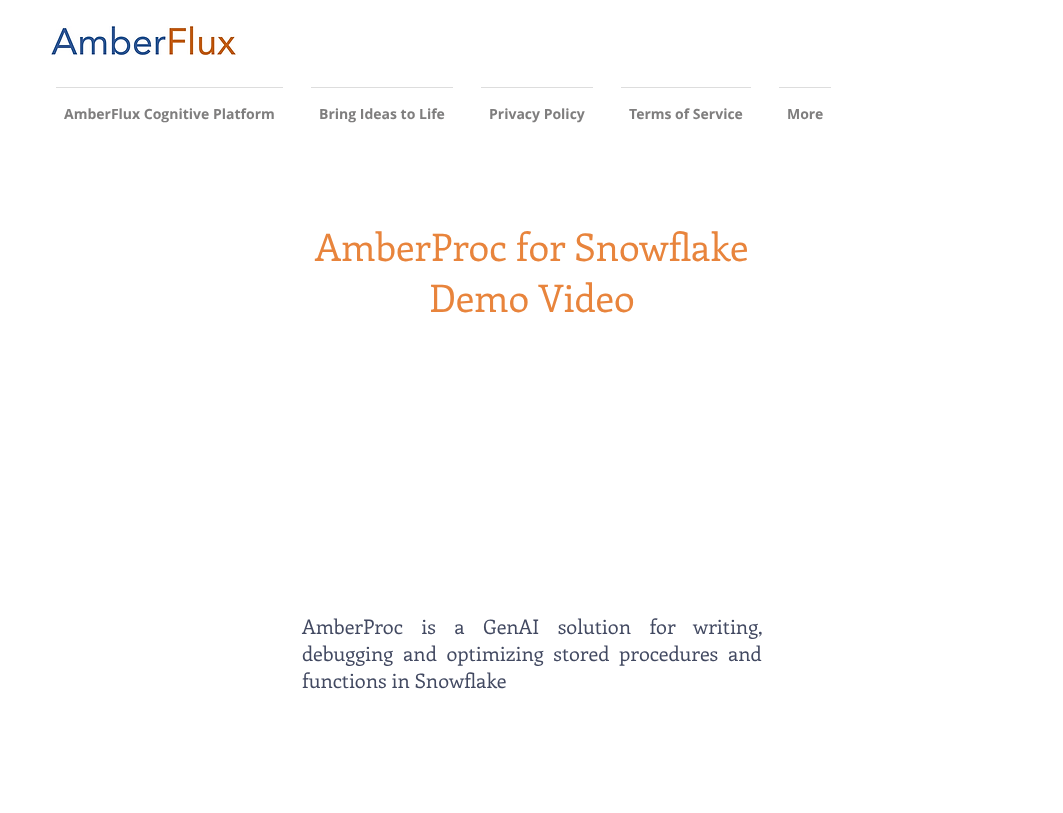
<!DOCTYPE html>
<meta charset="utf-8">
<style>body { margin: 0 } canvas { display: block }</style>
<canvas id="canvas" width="1063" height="813"></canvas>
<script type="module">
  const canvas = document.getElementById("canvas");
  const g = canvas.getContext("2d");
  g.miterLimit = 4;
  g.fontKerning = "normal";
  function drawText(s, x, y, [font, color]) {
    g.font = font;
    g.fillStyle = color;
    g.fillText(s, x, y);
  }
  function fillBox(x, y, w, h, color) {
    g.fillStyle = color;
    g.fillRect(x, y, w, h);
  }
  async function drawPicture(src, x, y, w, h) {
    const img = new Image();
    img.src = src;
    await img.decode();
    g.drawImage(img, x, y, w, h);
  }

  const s1 = ["bold 14px Open Sans", "#7F7E7E"];
  const s2 = ["38px Enriqueta", "#E8843C"];
  const s3 = ["20px Enriqueta", "#424961"];

  fillBox(0, 0, 1063, 813, "#FFFFFF");
  await drawPicture("pic1.png", 50, 26, 188, 29);
  fillBox(56, 87, 227, 1, "#DDDDDD");
  drawText("AmberFlux Cognitive Platform", 64, 119, s1);
  fillBox(311, 87, 142, 1, "#DDDDDD");
  drawText("Bring Ideas to Life", 319, 119, s1);
  fillBox(481, 87, 112, 1, "#DDDDDD");
  drawText("Privacy Policy", 489, 119, s1);
  fillBox(621, 87, 130, 1, "#DDDDDD");
  drawText("Terms of Service", 629, 119, s1);
  fillBox(779, 87, 52, 1, "#DDDDDD");
  drawText("More", 787, 119, s1);
  drawText("AmberProc for Snowflake", 315, 261, s2);
  drawText("Demo Video", 429, 312, s2);
  g.wordSpacing = "13.5px";
  drawText("AmberProc is a GenAI solution for writing,", 302, 634, s3);
  g.wordSpacing = "4.75px";
  drawText("debugging and optimizing stored procedures and", 302, 661, s3);
  g.wordSpacing = "0px";
  drawText("functions in Snowflake", 302, 688, s3);
</script>
